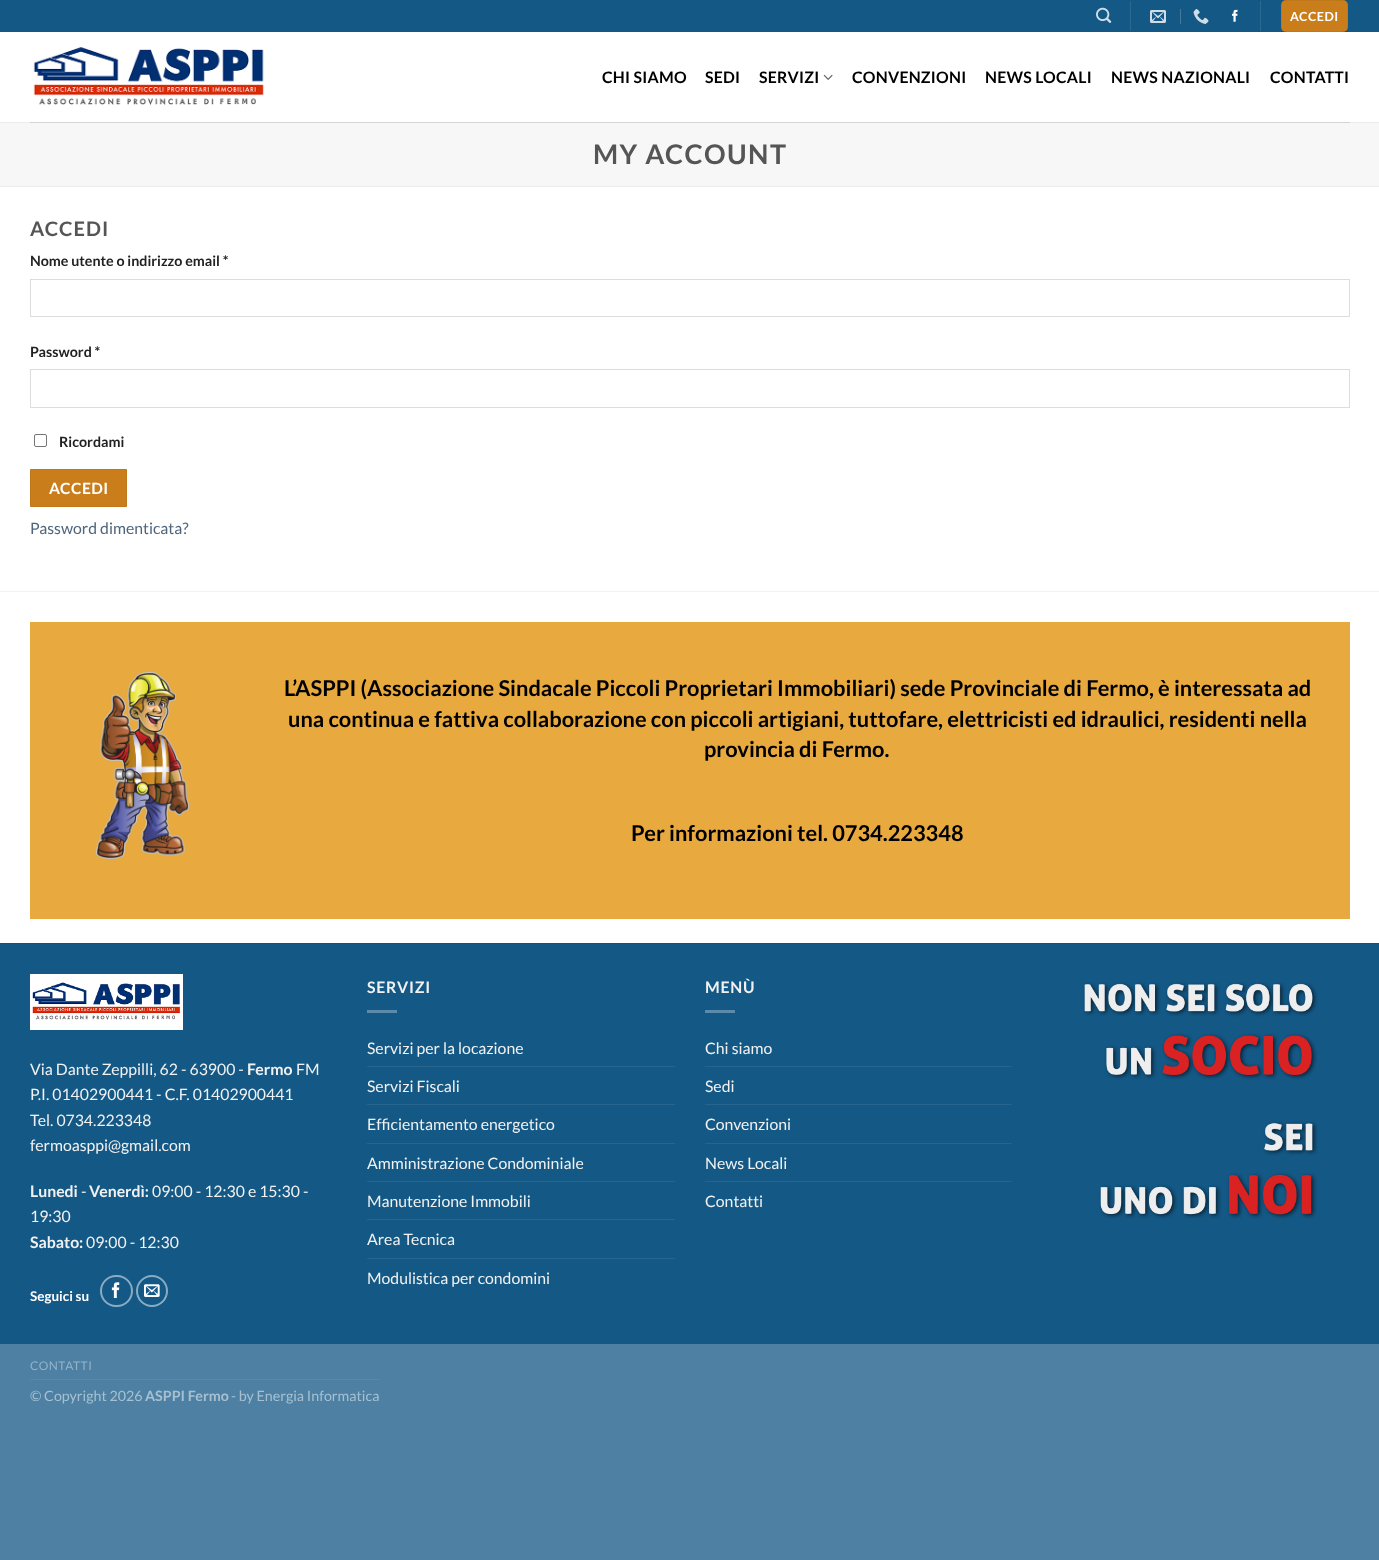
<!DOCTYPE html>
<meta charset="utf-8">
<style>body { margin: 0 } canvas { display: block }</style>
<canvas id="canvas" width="1379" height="1560"></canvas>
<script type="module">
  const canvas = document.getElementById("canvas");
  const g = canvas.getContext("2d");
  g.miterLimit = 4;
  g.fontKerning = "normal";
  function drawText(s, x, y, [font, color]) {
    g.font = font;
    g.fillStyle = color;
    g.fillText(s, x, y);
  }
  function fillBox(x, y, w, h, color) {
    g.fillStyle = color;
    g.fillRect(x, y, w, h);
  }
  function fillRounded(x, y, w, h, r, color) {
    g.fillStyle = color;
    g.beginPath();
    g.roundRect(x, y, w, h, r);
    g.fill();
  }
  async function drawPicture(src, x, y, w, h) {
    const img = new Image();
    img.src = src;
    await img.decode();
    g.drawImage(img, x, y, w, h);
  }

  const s1 = ["bold 12.5px Lato", "#FFFFFF"];
  const s2 = ["bold 15.8px Lato", "#000000"];
  const s3 = ["bold 27px Lato", "#555555"];
  const s4 = ["bold 20px Lato", "#555555"];
  const s5 = ["bold 14.25px Lato", "#222222"];
  const s6 = ["bold 15.5px Lato", "#FFFFFF"];
  const s7 = ["15.8px Lato", "#4E657B"];
  const s8 = ["bold 21.8px Lato", "#000000"];
  const s9 = ["15.8px Lato", "#F1F1F1"];
  const s10 = ["bold 15.8px Lato", "#F1F1F1"];
  const s11 = ["bold 13.5px Lato", "#FFFFFF"];
  const s12 = ["12px Lato", "#94B3C7"];
  const s13 = ["14.25px Lato", "#A6C0D1"];
  const s14 = ["bold 14.25px Lato", "#A6C0D1"];

  fillBox(0, 0, 1379, 1560, "#4D80A3");
  fillBox(0, 32, 1379, 911, "#FFFFFF");
  fillBox(0, 0, 1379, 32, "#145885");
  await drawPicture("pic1.png", 1096, 7, 16, 16);
  fillBox(1130, 1, 1, 30, "#2C6991");
  await drawPicture("pic2.png", 1150, 10, 16, 13);
  fillBox(1180, 9, 1, 15, "#43799D");
  await drawPicture("pic3.png", 1193, 9, 16, 15);
  await drawPicture("pic4.png", 1231, 9, 7, 13);
  fillBox(1260, 1, 1, 30, "#2C6991");
  fillRounded(1281, 0, 67, 32, 5, "#C97E1B");
  g.strokeStyle = "rgba(0, 0, 0, 0.05)";
  g.strokeRect(1281.5, 0.5, 66, 31);
  g.letterSpacing = "0.5px";
  drawText("ACCEDI", 1290, 21, s1);
  await drawPicture("pic5.png", 33, 47, 231, 58);
  g.letterSpacing = "0.25px";
  drawText("CHI SIAMO", 602, 83, s2);
  drawText("SEDI", 705, 83, s2);
  drawText("SERVIZI", 759, 83, s2);
  await drawPicture("pic6.png", 823, 74, 10, 6);
  drawText("CONVENZIONI", 852, 83, s2);
  drawText("NEWS LOCALI", 985, 83, s2);
  drawText("NEWS NAZIONALI", 1111, 83, s2);
  drawText("CONTATTI", 1270, 83, s2);
  fillBox(0, 122, 1379, 1, "#ECECEC");
  fillBox(30, 122, 1320, 1, "#D4D4D4");
  fillBox(0, 123, 1379, 63, "#F7F7F7");
  fillBox(0, 186, 1379, 1, "#ECECEC");
  g.letterSpacing = "1.4px";
  drawText("MY ACCOUNT", 593, 164, s3);
  g.letterSpacing = "1px";
  drawText("ACCEDI", 30, 236, s4);
  g.letterSpacing = "0px";
  drawText("Nome utente o indirizzo email *", 30, 266, s5);
  g.strokeStyle = "#DDDDDD";
  g.strokeRect(30.5, 279.5, 1319, 37);
  drawText("Password *", 30, 357, s5);
  g.strokeRect(30.5, 369.5, 1319, 38);
  g.beginPath();
  g.roundRect(34.5, 434.5, 12, 12, 1.5);
  g.strokeStyle = "#767676";
  g.stroke();
  drawText("Ricordami", 59, 447, s5);
  g.fillStyle = "#C97E1B";
  g.beginPath();
  g.rect(30.5, 469.5, 96, 37);
  g.fill();
  g.strokeStyle = "#BF781A";
  g.stroke();
  g.letterSpacing = "0.5px";
  drawText("ACCEDI", 49, 494, s6);
  g.letterSpacing = "0px";
  drawText("Password dimenticata?", 30, 534, s7);
  fillBox(0, 591, 1379, 1, "#F2F2F2");
  fillBox(30, 622, 1320, 297, "#E8A93E");
  await drawPicture("pic7.png", 96, 672, 93, 187);
  drawText("L’ASPPI (Associazione Sindacale Piccoli Proprietari Immobiliari) sede Provinciale di Fermo, è interessata ad", 284, 696, s8);
  drawText("una continua e fattiva collaborazione con piccoli artigiani, tuttofare, elettricisti ed idraulici, residenti nella", 288, 727, s8);
  drawText("provincia di Fermo.", 704, 757, s8);
  drawText("Per informazioni tel. 0734.223348", 631, 841, s8);
  fillBox(0, 944, 1379, 400, "#145885");
  fillBox(0, 943, 1379, 1, "#13547E");
  await drawPicture("pic8.png", 30, 974, 153, 56);
  drawText("Via Dante Zeppilli, 62 - 63900 -", 30, 1075, s9);
  drawText("Fermo", 247, 1075, s10);
  drawText("FM", 296, 1075, s9);
  drawText("P.I. 01402900441 - C.F. 01402900441", 30, 1100, s9);
  drawText("Tel. 0734.223348", 30, 1126, s9);
  drawText("fermoasppi@gmail.com", 30, 1151, s9);
  drawText("Lunedi", 30, 1197, s10);
  drawText("-", 81, 1197, s9);
  drawText("Venerdì:", 89, 1197, s10);
  drawText("09:00 - 12:30 e 15:30 -", 152, 1197, s9);
  drawText("19:30", 30, 1222, s9);
  drawText("Sabato:", 30, 1248, s10);
  drawText("09:00 - 12:30", 86, 1248, s9);
  drawText("Seguici su", 30, 1301, s11);
  g.beginPath();
  g.roundRect(101, 1276, 31, 30, 15);
  g.strokeStyle = "#8AACC2";
  g.lineWidth = 2;
  g.stroke();
  await drawPicture("pic9.png", 111, 1282, 9, 16);
  g.beginPath();
  g.arc(152, 1291, 15, 0, Math.PI * 2);
  g.stroke();
  await drawPicture("pic10.png", 144, 1284, 16, 13);
  g.letterSpacing = "0.75px";
  drawText("SERVIZI", 367, 993, s10);
  fillBox(367, 1010, 30, 3, "#5B8AAA");
  g.letterSpacing = "0px";
  drawText("Servizi per la locazione", 367, 1054, s9);
  fillBox(367, 1066, 308, 1, "#27658F");
  drawText("Servizi Fiscali", 367, 1092, s9);
  fillBox(367, 1104, 308, 1, "#27658F");
  drawText("Efficientamento energetico", 367, 1130, s9);
  fillBox(367, 1143, 308, 1, "#27658F");
  drawText("Amministrazione Condominiale", 367, 1169, s9);
  fillBox(367, 1181, 308, 1, "#27658F");
  drawText("Manutenzione Immobili", 367, 1207, s9);
  fillBox(367, 1219, 308, 1, "#27658F");
  drawText("Area Tecnica", 367, 1245, s9);
  fillBox(367, 1258, 308, 1, "#27658F");
  drawText("Modulistica per condomini", 367, 1284, s9);
  g.letterSpacing = "0.75px";
  drawText("MENÙ", 705, 993, s10);
  fillBox(705, 1010, 30, 3, "#5B8AAA");
  g.letterSpacing = "0px";
  drawText("Chi siamo", 705, 1054, s9);
  fillBox(705, 1066, 307, 1, "#27658F");
  drawText("Sedi", 705, 1092, s9);
  fillBox(705, 1104, 307, 1, "#27658F");
  drawText("Convenzioni", 705, 1130, s9);
  fillBox(705, 1143, 307, 1, "#27658F");
  drawText("News Locali", 705, 1169, s9);
  fillBox(705, 1181, 307, 1, "#27658F");
  drawText("Contatti", 705, 1207, s9);
  await drawPicture("pic11.png", 1083, 982, 235, 237);
  fillBox(30, 1379, 350, 1, "#5788A8");
  g.letterSpacing = "0.5px";
  drawText("CONTATTI", 30, 1370, s12);
  g.letterSpacing = "0px";
  drawText("© Copyright 2026", 30, 1401, s13);
  drawText("ASPPI Fermo", 145, 1401, s14);
  drawText("- by Energia Informatica", 231, 1401, s13);
</script>
